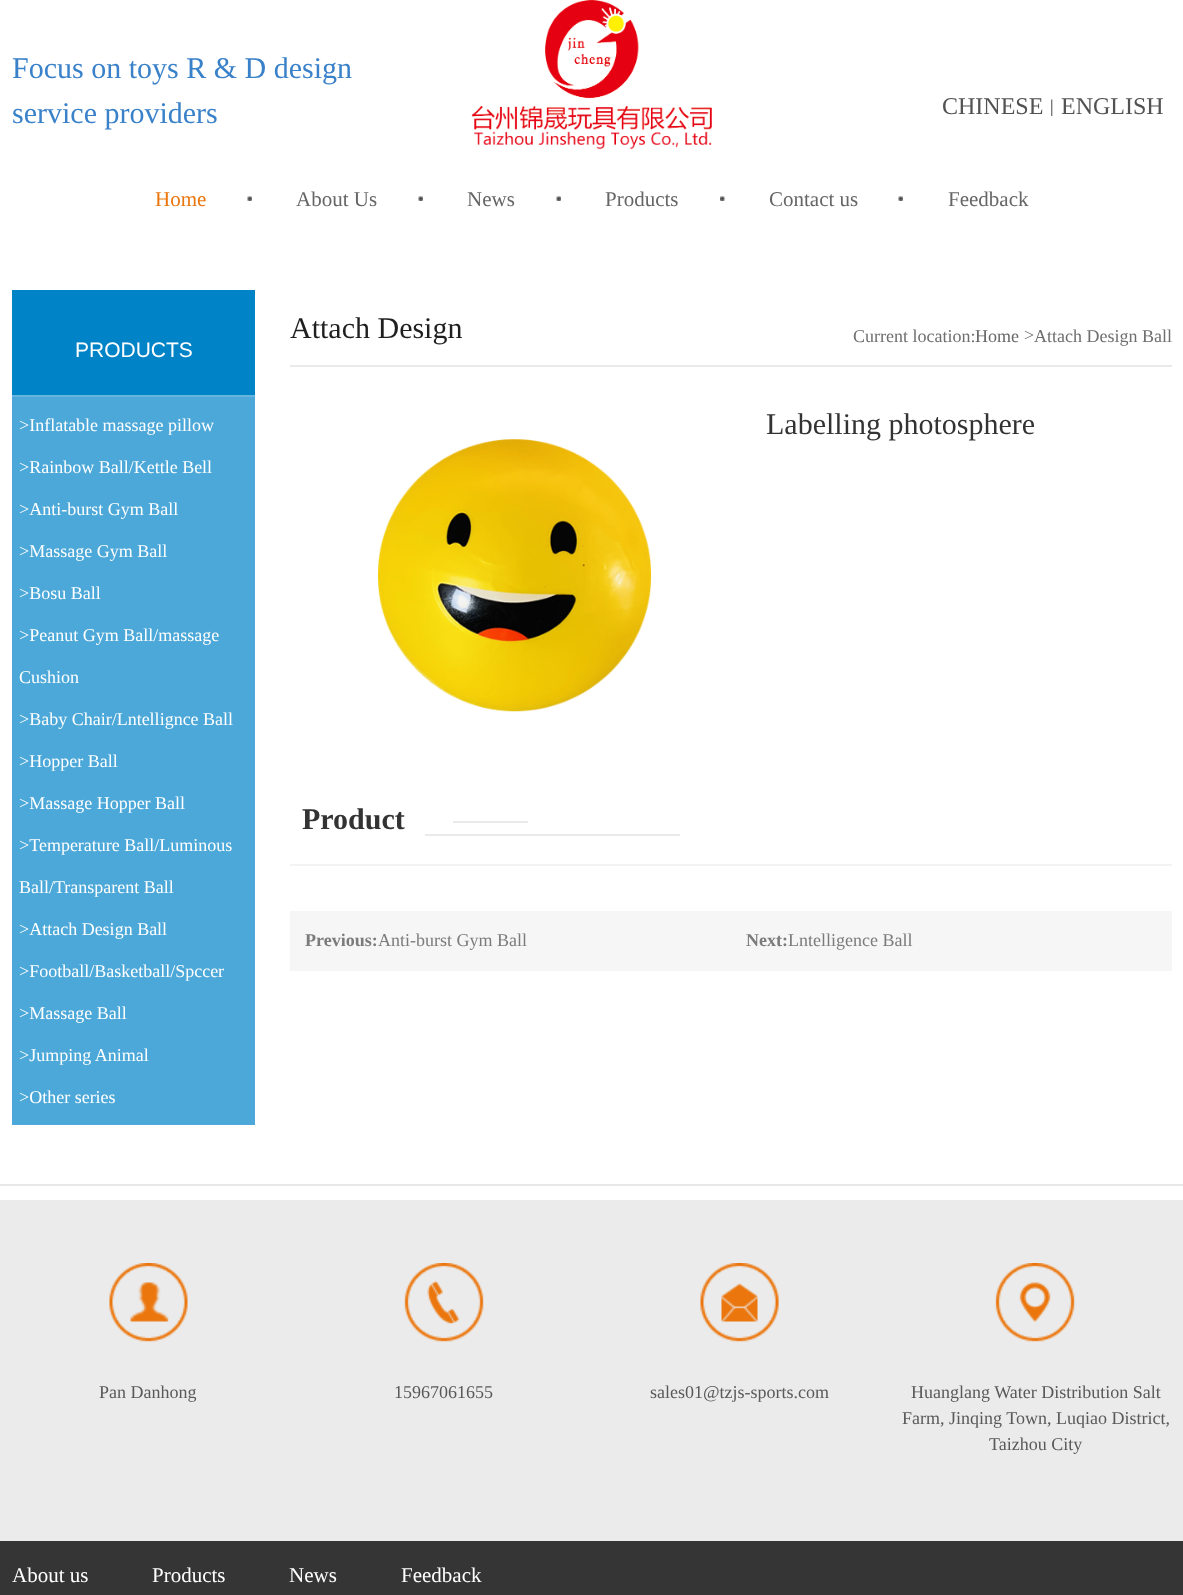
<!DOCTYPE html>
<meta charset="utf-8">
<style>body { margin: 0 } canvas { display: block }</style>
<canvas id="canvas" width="1183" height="1595"></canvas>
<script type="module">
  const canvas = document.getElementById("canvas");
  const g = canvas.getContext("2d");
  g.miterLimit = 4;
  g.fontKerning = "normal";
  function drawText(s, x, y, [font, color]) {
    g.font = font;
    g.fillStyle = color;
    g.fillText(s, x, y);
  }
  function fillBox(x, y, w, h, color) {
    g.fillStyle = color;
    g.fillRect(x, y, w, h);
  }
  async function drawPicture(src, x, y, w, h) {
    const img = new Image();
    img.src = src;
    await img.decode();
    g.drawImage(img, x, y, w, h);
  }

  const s1 = ["30px Liberation Serif", "#3981C9"];
  const s2 = ["24px Liberation Serif", "#525252"];
  const s3 = ["18px Liberation Serif", "#333333"];
  const s4 = ["21px Liberation Serif", "#EB760D"];
  const s5 = ["21px Liberation Serif", "#666666"];
  const s6 = ["21px Liberation Sans", "#FFFFFF"];
  const s7 = ["18px Liberation Serif", "#FFFFFF"];
  const s8 = ["30px Liberation Serif", "#1F1F1F"];
  const s9 = ["18px Liberation Serif", "#6E6E6E"];
  const s10 = ["18px Liberation Serif", "#666666"];
  const s11 = ["30px Liberation Serif", "#333333"];
  const s12 = ["bold 30px Liberation Serif", "#333333"];
  const s13 = ["bold 18px Liberation Serif", "#7B7B7B"];
  const s14 = ["18px Liberation Serif", "#7B7B7B"];
  const s15 = ["18px Liberation Serif", "#595959"];
  const s16 = ["21px Liberation Serif", "#FFFFFF"];

  fillBox(0, 0, 1183, 1595, "#FFFFFF");
  drawText("Focus on toys R & D design", 12, 78, s1);
  drawText("service providers", 12, 123, s1);
  await drawPicture("pic1.png", 471, 0, 241, 150);
  drawText("CHINESE", 942, 114, s2);
  drawText("|", 1050, 112, s3);
  drawText("ENGLISH", 1061, 114, s2);
  drawText("Home", 155, 206, s4);
  await drawPicture("pic2.png", 247, 196, 5, 5);
  drawText("About Us", 296, 206, s5);
  await drawPicture("pic3.png", 418, 196, 5, 5);
  drawText("News", 467, 206, s5);
  await drawPicture("pic3.png", 556, 196, 5, 5);
  drawText("Products", 605, 206, s5);
  await drawPicture("pic4.png", 720, 196, 5, 5);
  drawText("Contact us", 769, 206, s5);
  await drawPicture("pic2.png", 898, 196, 5, 5);
  drawText("Feedback", 948, 206, s5);
  fillBox(12, 290, 243, 105, "#0083C7");
  drawText("PRODUCTS", 75, 357, s6);
  fillBox(12, 397, 243, 728, "#4CA8D8");
  fillBox(12, 395, 243, 2, "#67B5DE");
  drawText(">Inflatable massage pillow", 19, 431, s7);
  drawText(">Rainbow Ball/Kettle Bell", 19, 473, s7);
  drawText(">Anti-burst Gym Ball", 19, 515, s7);
  drawText(">Massage Gym Ball", 19, 557, s7);
  drawText(">Bosu Ball", 19, 599, s7);
  drawText(">Peanut Gym Ball/massage", 19, 641, s7);
  drawText("Cushion", 19, 683, s7);
  drawText(">Baby Chair/Lntellignce Ball", 19, 725, s7);
  drawText(">Hopper Ball", 19, 767, s7);
  drawText(">Massage Hopper Ball", 19, 809, s7);
  drawText(">Temperature Ball/Luminous", 19, 851, s7);
  drawText("Ball/Transparent Ball", 19, 893, s7);
  drawText(">Attach Design Ball", 19, 935, s7);
  drawText(">Football/Basketball/Spccer", 19, 977, s7);
  drawText(">Massage Ball", 19, 1019, s7);
  drawText(">Jumping Animal", 19, 1061, s7);
  drawText(">Other series", 19, 1103, s7);
  fillBox(290, 365, 882, 2, "#EAEAEA");
  drawText("Attach Design", 290, 338, s8);
  drawText("Current location:", 853, 342, s9);
  drawText("Home", 975, 342, s10);
  drawText(">", 1024, 341, s9);
  drawText("Attach Design Ball", 1034, 342, s9);
  drawText("Labelling photosphere", 766, 434, s11);
  await drawPicture("pic5.png", 378, 439, 274, 273);
  fillBox(290, 864, 882, 2, "#F3F3F3");
  drawText("Product", 302, 829, s12);
  fillBox(453, 821, 75, 2, "#EAEAEA");
  fillBox(425, 834, 255, 2, "#EAEAEA");
  fillBox(290, 911, 882, 60, "#F6F6F6");
  drawText("Previous:", 305, 946, s13);
  drawText("Anti-burst Gym Ball", 378, 946, s14);
  drawText("Next:", 746, 946, s13);
  drawText("Lntelligence Ball", 788, 946, s14);
  fillBox(0, 1184, 1183, 2, "#E8E8E8");
  fillBox(0, 1200, 1183, 341, "#EBEBEB");
  await drawPicture("pic6.png", 109, 1263, 79, 79);
  drawText("Pan Danhong", 99, 1398, s15);
  await drawPicture("pic7.png", 404, 1263, 80, 79);
  drawText("15967061655", 394, 1398, s15);
  await drawPicture("pic8.png", 700, 1263, 79, 79);
  drawText("sales01@tzjs-sports.com", 650, 1398, s15);
  await drawPicture("pic9.png", 995, 1263, 80, 79);
  drawText("Huanglang Water Distribution Salt", 911, 1398, s15);
  drawText("Farm, Jinqing Town, Luqiao District,", 902, 1424, s15);
  drawText("Taizhou City", 989, 1450, s15);
  fillBox(0, 1541, 1183, 54, "#353535");
  drawText("About us", 12, 1582, s16);
  drawText("Products", 152, 1582, s16);
  drawText("News", 289, 1582, s16);
  drawText("Feedback", 401, 1582, s16);
</script>
